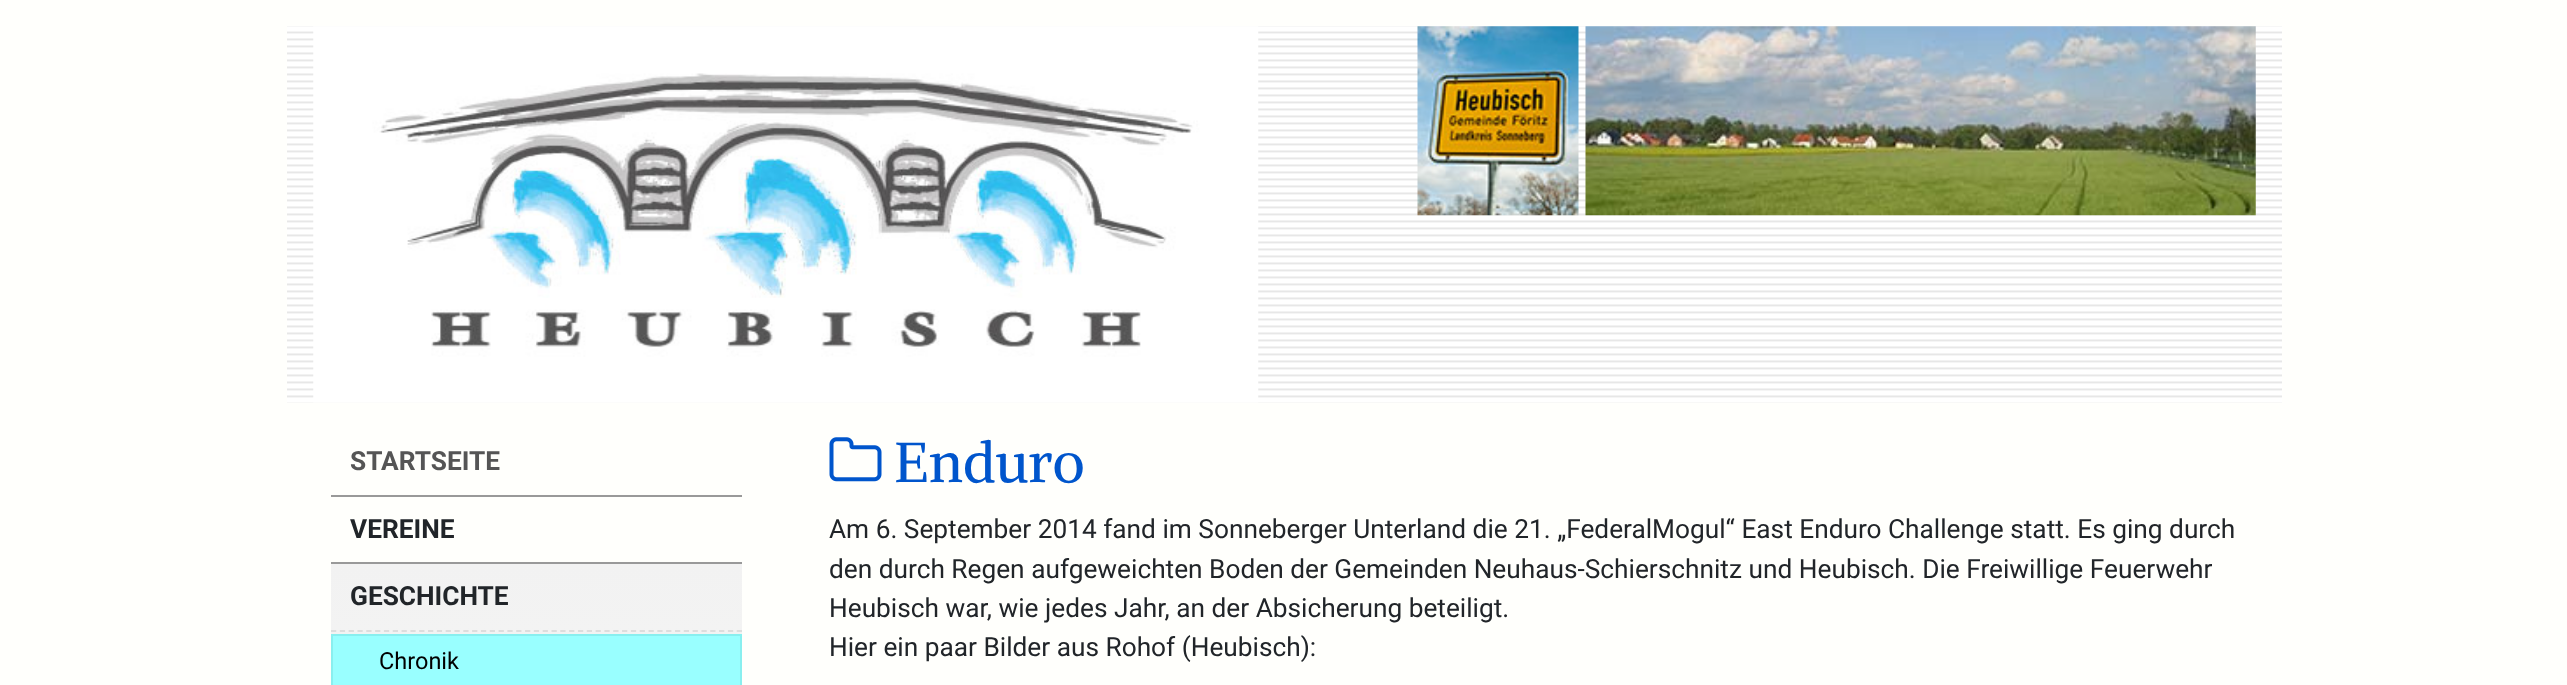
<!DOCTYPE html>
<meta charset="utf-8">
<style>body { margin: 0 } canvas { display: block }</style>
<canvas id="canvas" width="2567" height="685"></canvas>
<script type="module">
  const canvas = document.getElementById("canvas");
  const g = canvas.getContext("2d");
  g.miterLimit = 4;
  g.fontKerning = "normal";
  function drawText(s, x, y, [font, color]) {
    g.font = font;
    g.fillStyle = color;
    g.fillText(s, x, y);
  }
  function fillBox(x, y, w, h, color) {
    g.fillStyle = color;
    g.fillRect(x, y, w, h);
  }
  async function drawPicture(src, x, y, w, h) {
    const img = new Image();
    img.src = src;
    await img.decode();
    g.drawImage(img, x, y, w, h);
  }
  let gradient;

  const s1 = ["bold 26.25px Roboto", "#555555"];
  const s2 = ["bold 26.25px Roboto", "#212529"];
  const s3 = ["23.5px Roboto", "#000000"];
  const s4 = ["56px Alike", "#0055CC"];
  const s5 = ["26.25px Roboto", "#212529"];

  fillBox(0, 0, 2567, 685, "#FFFFFC");
  await drawPicture("pic1.png", 287, 26, 1995, 377);
  await drawPicture("pic2.png", 313, 26, 946, 377);
  await drawPicture("pic3.png", 1417, 26, 162, 190);
  await drawPicture("pic4.png", 1585, 26, 671, 190);
  fillBox(331, 495, 411, 2, "#999999");
  drawText("STARTSEITE", 350, 470, s1);
  fillBox(331, 562, 411, 2, "#999999");
  drawText("VEREINE", 350, 538, s2);
  gradient = g.createLinearGradient(536, 564, 536, 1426);
  gradient.addColorStop(0, "#F2F2F2");
  gradient.addColorStop(1, "#FFFFFC");
  g.fillStyle = gradient;
  g.fillRect(331, 564, 411, 70);
  drawText("GESCHICHTE", 350, 605, s2);
  g.beginPath();
  g.moveTo(331, 631);
  g.lineTo(742, 631);
  g.strokeStyle = "#DDDDDD";
  g.lineWidth = 1.8;
  g.setLineDash([5.25, 3.57]);
  g.stroke();
  g.fillStyle = "#99FFFF";
  g.beginPath();
  g.rect(332, 635, 409, 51);
  g.fill();
  g.strokeStyle = "#89EFEF";
  g.lineWidth = 2;
  g.setLineDash([]);
  g.stroke();
  drawText("Chronik", 379, 669, s3);
  await drawPicture("pic5.png", 829, 437, 53, 45);
  drawText("Enduro", 894, 482, s4);
  drawText("Am 6. September 2014 fand im Sonneberger Unterland die 21. „FederalMogul“ East Enduro Challenge statt. Es ging durch", 829, 538, s5);
  drawText("den durch Regen aufgeweichten Boden der Gemeinden Neuhaus-Schierschnitz und Heubisch. Die Freiwillige Feuerwehr", 829, 578, s5);
  drawText("Heubisch war, wie jedes Jahr, an der Absicherung beteiligt.", 829, 617, s5);
  drawText("Hier ein paar Bilder aus Rohof (Heubisch):", 829, 656, s5);
</script>
